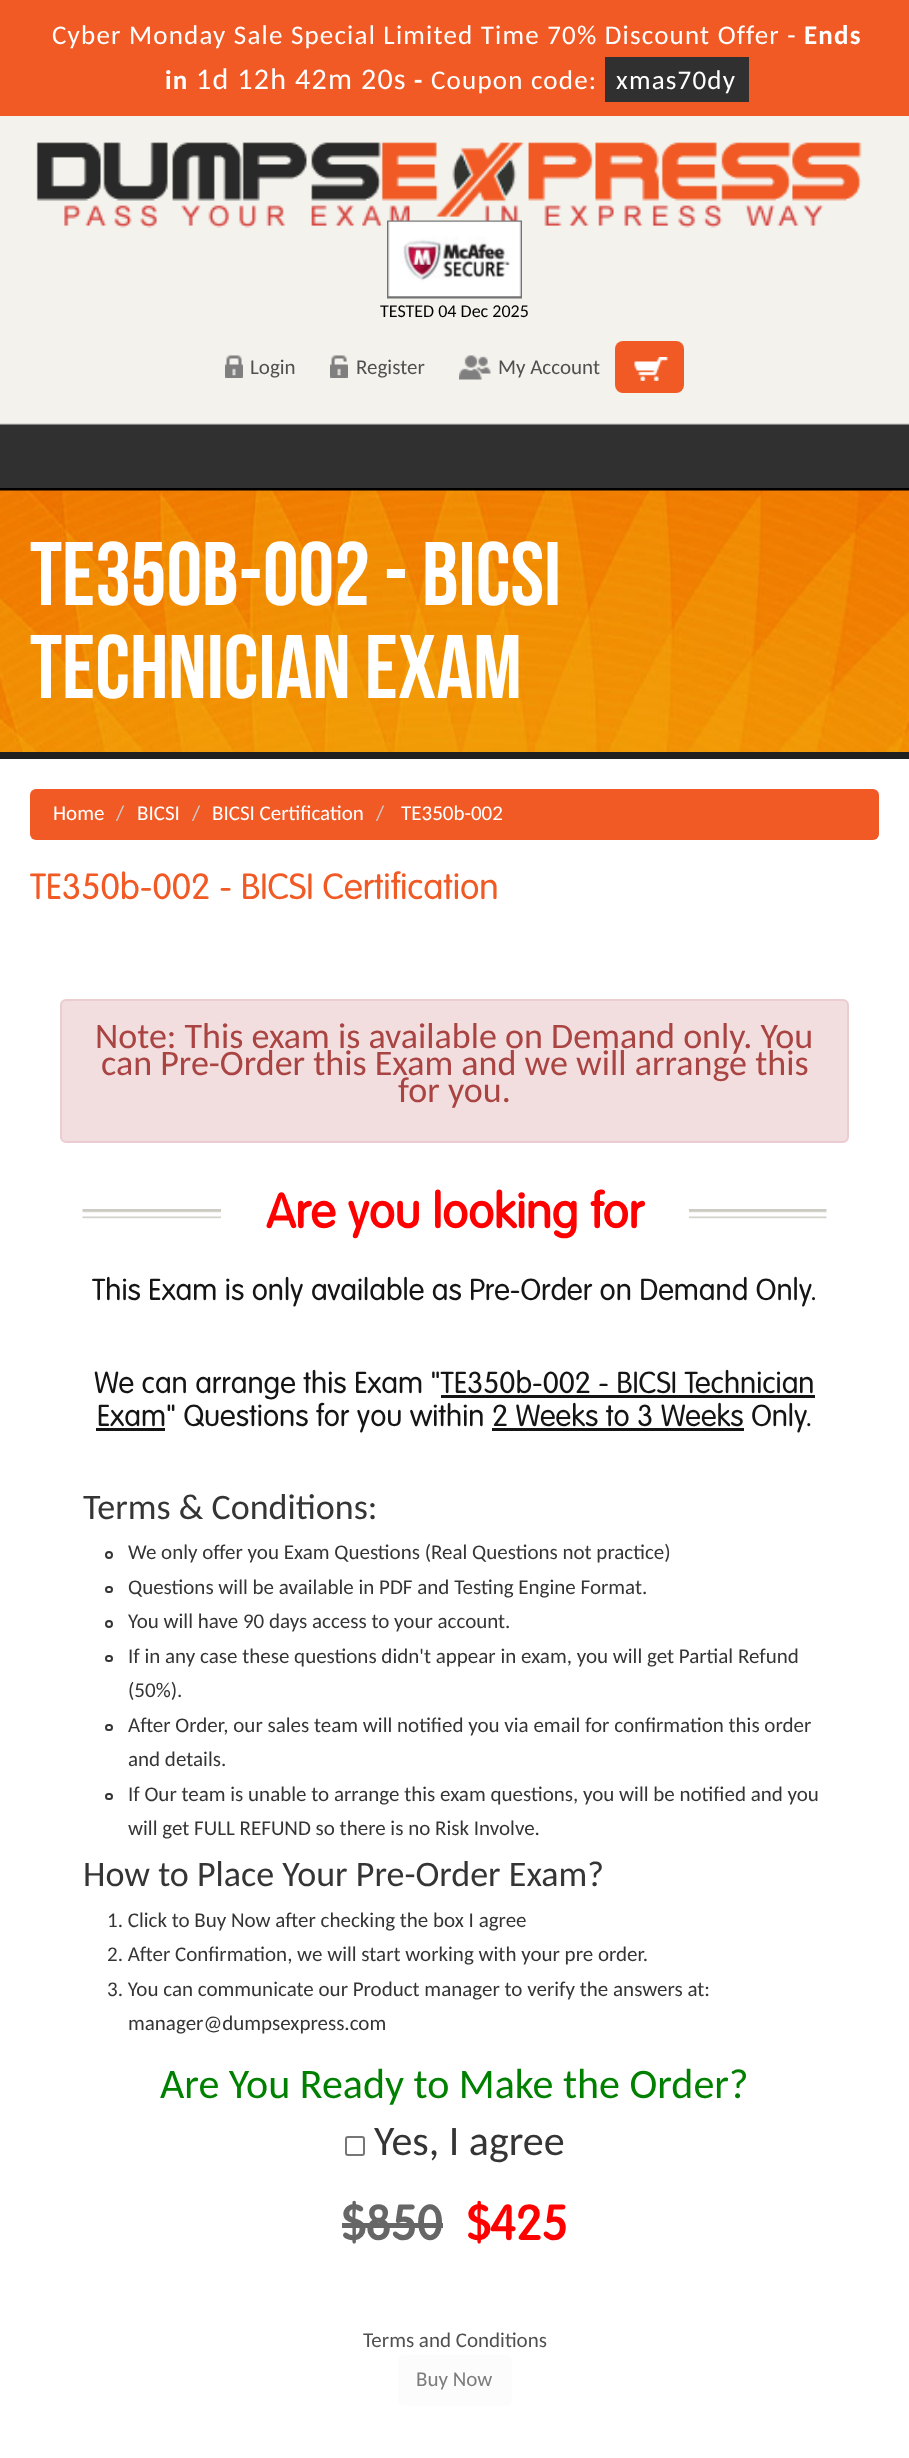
<!DOCTYPE html>
<meta charset="utf-8">
<style>body { margin: 0 } canvas { display: block }</style>
<canvas id="canvas" width="909" height="2458"></canvas>
<script type="module">
  const canvas = document.getElementById("canvas");
  const g = canvas.getContext("2d");
  g.miterLimit = 4;
  g.fontKerning = "normal";
  function drawText(s, x, y, [font, color]) {
    g.font = font;
    g.fillStyle = color;
    g.fillText(s, x, y);
  }
  function fillBox(x, y, w, h, color) {
    g.fillStyle = color;
    g.fillRect(x, y, w, h);
  }
  function fillRounded(x, y, w, h, r, color) {
    g.fillStyle = color;
    g.beginPath();
    g.roundRect(x, y, w, h, r);
    g.fill();
  }
  async function drawPicture(src, x, y, w, h) {
    const img = new Image();
    img.src = src;
    await img.decode();
    g.drawImage(img, x, y, w, h);
  }

  const s1 = ["27px Carlito", "#FFFFFF"];
  const s2 = ["bold 27px Carlito", "#FFFFFF"];
  const s3 = ["30px Carlito", "#FFFFFF"];
  const s4 = ["18px Carlito", "#000000"];
  const s5 = ["21px Carlito", "#505050"];
  const s6 = ["90px Bebas Neue", "#FFFFFF"];
  const s7 = ["21px Carlito", "#FFFFFF"];
  const s8 = ["21px Carlito", "#CCCCCC"];
  const s9 = ["300 36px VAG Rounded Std", "#F15A25"];
  const s10 = ["36px Carlito", "#A94442"];
  const s11 = ["bold 48px VAG Rounded Std", "#FF0000"];
  const s12 = ["300 30px VAG Rounded Std", "#151515"];
  const s13 = ["36px Carlito", "#353535"];
  const s14 = ["21px Carlito", "#353535"];
  const s15 = ["42px Carlito", "#008000"];
  const s16 = ["42px Carlito", "#353535"];
  const s17 = ["bold 48px VAG Rounded Std", "#666666"];
  const s18 = ["21px Carlito", "#7C7C7C"];

  fillBox(0, 0, 909, 2458, "#F3F2ED");
  fillBox(0, 0, 909, 116, "#F15A25");
  g.letterSpacing = "1.2px";
  drawText("Cyber Monday Sale Special Limited Time 70% Discount Offer -", 52, 44, s1);
  drawText("Ends", 804, 44, s2);
  drawText("in", 165, 89, s2);
  drawText("1d 12h 42m 20s", 196, 89, s3);
  drawText("-", 414, 89, s2);
  drawText("Coupon code:", 431, 89, s1);
  fillBox(605, 57, 144, 45, "#303030");
  drawText("xmas70dy", 616, 89, s1);
  fillBox(0, 423, 909, 1, "#DBDAD5");
  await drawPicture("pic1.png", 36, 142, 826, 86);
  await drawPicture("pic2.png", 387, 220, 135, 79);
  g.letterSpacing = "0px";
  drawText("TESTED 04 Dec 2025", 380, 317, s4);
  await drawPicture("pic3.png", 225, 355, 18, 23);
  drawText("Login", 250, 374, s5);
  await drawPicture("pic4.png", 330, 355, 18, 23);
  drawText("Register", 356, 374, s5);
  await drawPicture("pic5.png", 459, 355, 32, 25);
  drawText("My Account", 498, 374, s5);
  fillRounded(615, 341, 69, 52, 8, "#F15A25");
  await drawPicture("pic6.png", 634, 357, 34, 24);
  fillBox(0, 425, 909, 63, "#303030");
  fillBox(0, 424, 909, 1, "#848381");
  fillBox(0, 488, 909, 3, "#000000");
  await drawPicture("pic7.png", 0, 490, 909, 262);
  fillBox(0, 752, 909, 7, "#202020");
  drawText("TE350b-002 - BICSI", 30, 605, s6);
  drawText("Technician Exam", 30, 698, s6);
  fillBox(0, 759, 909, 1699, "#FFFFFF");
  fillRounded(30, 789, 849, 51, 6, "#F15A25");
  drawText("Home", 53, 820, s7);
  drawText("/", 116, 820, s8);
  drawText("BICSI", 137, 820, s7);
  drawText("/", 192, 820, s8);
  drawText("BICSI Certification", 212, 820, s7);
  drawText("/", 376, 820, s8);
  drawText("TE350b-002", 401, 820, s7);
  drawText("TE350b-002 - BICSI Certification", 30, 899, s9);
  g.fillStyle = "#F2DEDE";
  g.beginPath();
  g.roundRect(61, 1000, 787, 142, 5);
  g.fill();
  g.strokeStyle = "#EBCCD1";
  g.lineWidth = 2;
  g.stroke();
  drawText("Note: This exam is available on Demand only. You", 95, 1048, s10);
  drawText("can Pre-Order this Exam and we will arrange this", 101, 1075, s10);
  drawText("for you.", 398, 1102, s10);
  await drawPicture("pic8.png", 82, 1209, 745, 10);
  fillBox(221, 1209, 468, 10, "#FFFFFF");
  drawText("Are you looking for", 266, 1228, s11);
  drawText("This Exam is only available as Pre-Order on Demand Only.", 92, 1300, s12);
  drawText("We can arrange this Exam \"TE350b-002 - BICSI Technician", 94, 1393, s12);
  fillBox(96, 1428, 69, 3, "#151515");
  drawText("Exam\" Questions for you within 2 Weeks to 3 Weeks Only.", 97, 1426, s12);
  fillBox(441, 1395, 374, 3, "#151515");
  fillBox(492, 1428, 252, 3, "#151515");
  drawText("Terms & Conditions:", 83, 1519, s13);
  g.beginPath();
  g.arc(109, 1555, 3, 0, Math.PI * 2);
  g.strokeStyle = "#353535";
  g.stroke();
  drawText("We only offer you Exam Questions (Real Questions not practice)", 128, 1559, s14);
  g.beginPath();
  g.roundRect(106, 1587, 6, 5, 2.5);
  g.stroke();
  drawText("Questions will be available in PDF and Testing Engine Format.", 128, 1594, s14);
  g.beginPath();
  g.arc(109, 1624, 3, 0, Math.PI * 2);
  g.stroke();
  drawText("You will have 90 days access to your account.", 128, 1628, s14);
  g.beginPath();
  g.roundRect(106, 1656, 6, 5, 2.5);
  g.stroke();
  drawText("If in any case these questions didn't appear in exam, you will get Partial Refund", 128, 1663, s14);
  drawText("(50%).", 128, 1697, s14);
  g.beginPath();
  g.roundRect(106, 1725, 6, 5, 2.5);
  g.stroke();
  drawText("After Order, our sales team will notified you via email for confirmation this order", 128, 1732, s14);
  drawText("and details.", 128, 1766, s14);
  g.beginPath();
  g.roundRect(106, 1794, 6, 5, 2.5);
  g.stroke();
  drawText("If Our team is unable to arrange this exam questions, you will be notified and you", 128, 1801, s14);
  drawText("will get FULL REFUND so there is no Risk Involve.", 128, 1835, s14);
  drawText("How to Place Your Pre-Order Exam?", 83, 1886, s13);
  drawText("1. Click to Buy Now after checking the box I agree", 107, 1927, s14);
  drawText("2. After Confirmation, we will start working with your pre order.", 107, 1961, s14);
  drawText("3. You can communicate our Product manager to verify the answers at:", 107, 1996, s14);
  drawText("manager@dumpsexpress.com", 128, 2030, s14);
  drawText("Are You Ready to Make the Order?", 160, 2098, s15);
  g.beginPath();
  g.roundRect(346, 2137, 18, 18, 2);
  g.strokeStyle = "#767676";
  g.stroke();
  drawText("Yes, I agree", 374, 2155, s16);
  drawText("$850", 342, 2240, s17);
  fillBox(342, 2223, 101, 5, "#666666");
  drawText("$425", 467, 2240, s11);
  drawText("Terms and Conditions", 363, 2347, s5);
  fillRounded(398, 2355, 114, 51, 6, "#FCFCFC");
  drawText("Buy Now", 416, 2386, s18);
</script>
